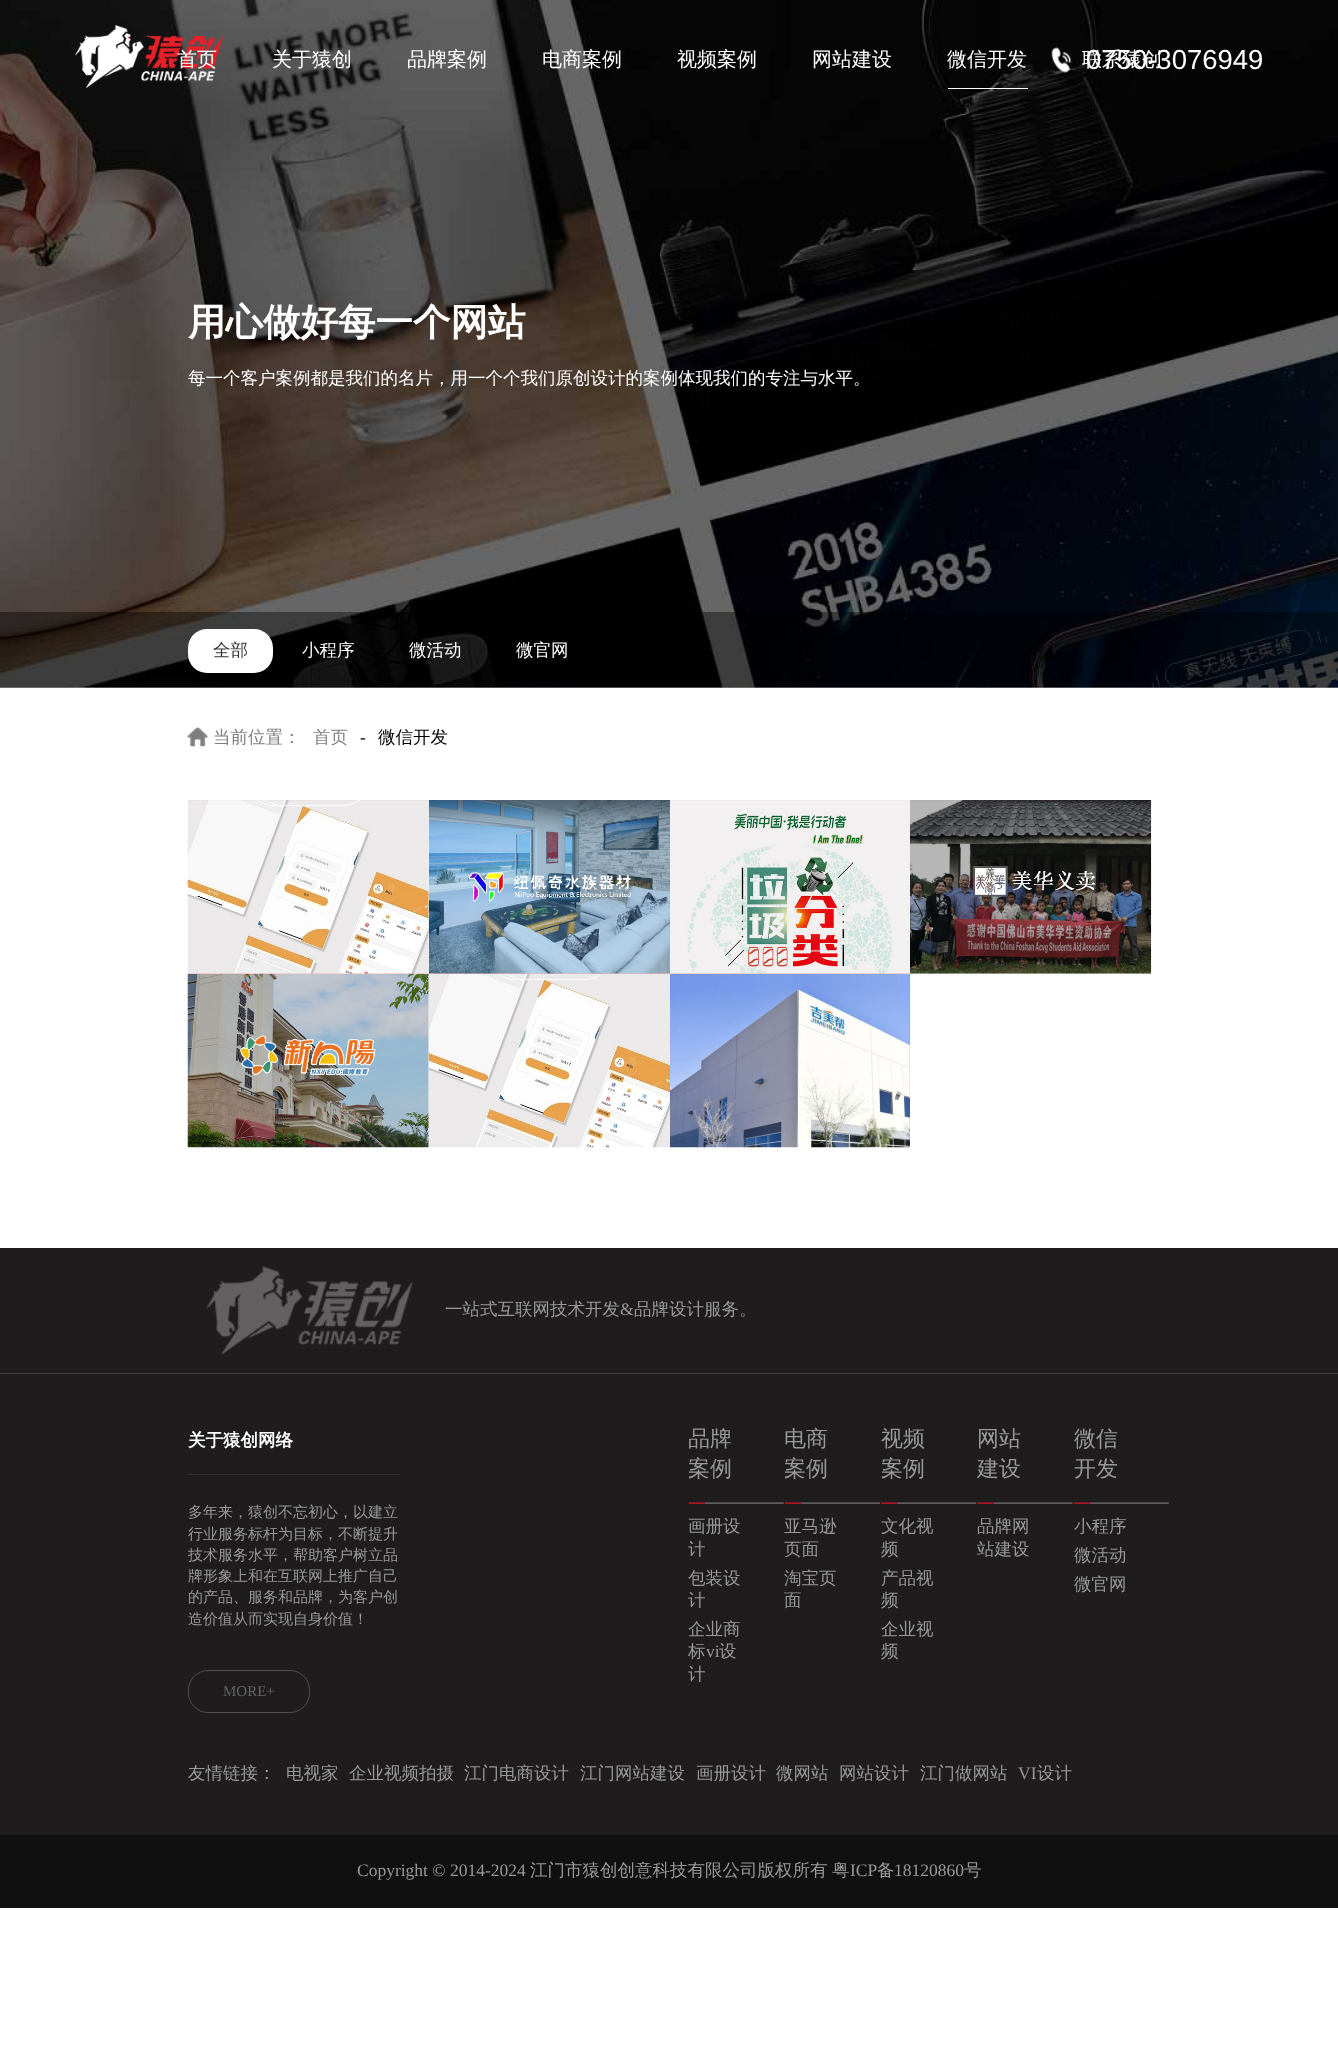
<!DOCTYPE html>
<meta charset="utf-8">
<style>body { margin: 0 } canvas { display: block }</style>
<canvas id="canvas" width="1338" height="2065"></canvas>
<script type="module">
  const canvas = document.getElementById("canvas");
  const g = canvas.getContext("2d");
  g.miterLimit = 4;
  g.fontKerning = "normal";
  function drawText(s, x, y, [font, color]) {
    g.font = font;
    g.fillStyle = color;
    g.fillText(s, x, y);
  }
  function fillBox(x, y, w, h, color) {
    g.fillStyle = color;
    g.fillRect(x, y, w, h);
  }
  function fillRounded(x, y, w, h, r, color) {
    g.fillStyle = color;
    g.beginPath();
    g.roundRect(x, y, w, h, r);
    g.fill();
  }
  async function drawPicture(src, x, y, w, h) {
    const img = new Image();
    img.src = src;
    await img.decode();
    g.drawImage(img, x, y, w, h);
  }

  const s1 = ["500 20px WenQuanYi Zen Hei", "#FFFFFF"];
  const s2 = ["27.5px Liberation Sans", "#FFFFFF"];
  const s3 = ["bold 37.5px WenQuanYi Zen Hei", "#FFFFFF"];
  const s4 = ["500 17.5px WenQuanYi Zen Hei", "#FFFFFF"];
  const s5 = ["500 17.5px WenQuanYi Zen Hei", "#333333"];
  const s6 = ["500 17.5px WenQuanYi Zen Hei", "#7E7E7E"];
  const s7 = ["17.5px Liberation Serif", "#000000"];
  const s8 = ["500 17.5px WenQuanYi Zen Hei", "#000000"];
  const s9 = ["500 17.5px WenQuanYi Zen Hei", "#999999"];
  const s10 = ["17.5px Liberation Serif", "#999999"];
  const s11 = ["bold 17.5px WenQuanYi Zen Hei", "#FFFFFF"];
  const s12 = ["500 15px WenQuanYi Zen Hei", "#999999"];
  const s13 = ["15px Liberation Serif", "#666666"];
  const s14 = ["500 22px WenQuanYi Zen Hei", "#999999"];

  fillBox(0, 0, 1338, 2065, "#FFFFFF");
  await drawPicture("pic3.png", 0, 0, 1338, 688);
  await drawPicture("pic1.png", 75, 25, 148, 63);
  drawText("首页", 177, 66, s1);
  drawText("关于猿创", 272, 66, s1);
  drawText("品牌案例", 407, 66, s1);
  drawText("电商案例", 542, 66, s1);
  drawText("视频案例", 677, 66, s1);
  drawText("网站建设", 812, 66, s1);
  drawText("微信开发", 947, 66, s1);
  fillBox(948, 88, 80, 1, "#FFFFFF");
  drawText("0750-3076949", 1086, 69, s2);
  drawText("联系猿创", 1082, 66, s1);
  await drawPicture("pic2.png", 1051, 47, 20, 26);
  drawText("用心做好每一个网站", 188, 335, s3);
  drawText("每一个客户案例都是我们的名片，用一个个我们原创设计的案例体现我们的专注与水平。", 188, 384, s4);
  fillBox(0, 612, 1338, 76, "rgba(0, 0, 0, 0.4)");
  fillRounded(188, 629, 85, 44, 19, "#FFFFFF");
  drawText("全部", 213, 656, s5);
  drawText("小程序", 302, 656, s4);
  drawText("微活动", 409, 656, s4);
  drawText("微官网", 516, 656, s4);
  await drawPicture("pic4.png", 187, 727, 21, 20);
  drawText("当前位置：", 213, 743, s6);
  drawText("首页", 313, 743, s6);
  drawText("-", 360, 743, s7);
  drawText("微信开发", 378, 743, s8);
  await drawPicture("pic5.png", 187, 800, 242, 174);
  fillBox(188, 800, 240, 1, "rgba(255, 36, 36, 0.03)");
  g.save();
  g.beginPath();
  g.rect(188, 800, 241, 174);
  g.clip();
  g.beginPath();
  g.roundRect(248.5, 756.5, 120, 49, 24.5);
  g.strokeStyle = "#FFFFFF";
  g.stroke();
  g.restore();
  await drawPicture("pic6.png", 428, 800, 242, 174);
  fillBox(429, 800, 241, 1, "rgba(255, 36, 36, 0.03)");
  fillBox(670, 800, 240, 1, "#F2EAEB");
  await drawPicture("pic7.png", 670, 801, 240, 173);
  await drawPicture("pic8.png", 910, 800, 242, 174);
  fillBox(910, 800, 241, 1, "rgba(255, 36, 36, 0.03)");
  await drawPicture("pic9.png", 187, 973, 242, 175);
  await drawPicture("pic10.png", 187, 973, 242, 1);
  await drawPicture("pic11.png", 428, 973, 242, 175);
  fillBox(429, 973, 241, 1, "rgba(230, 32, 38, 0.16)");
  g.save();
  g.beginPath();
  g.rect(429, 974, 241, 174);
  g.clip();
  g.beginPath();
  g.roundRect(489.5, 930.5, 120, 49, 24.5);
  g.strokeStyle = "#FFFFFF";
  g.stroke();
  g.restore();
  await drawPicture("pic12.png", 670, 973, 240, 175);
  fillBox(670, 973, 240, 1, "rgba(230, 32, 38, 0.16)");
  fillBox(0, 1248, 1338, 587, "#1E1C1D");
  fillBox(0, 1373, 1338, 1, "#3F3F3F");
  await drawPicture("pic13.png", 206, 1266, 207, 88);
  drawText("一站式互联网技术开发", 445, 1315, s9);
  drawText("&", 620, 1315, s10);
  drawText("品牌设计服务。", 634, 1315, s9);
  fillBox(188, 1474, 212, 1, "#302E2F");
  drawText("关于猿创网络", 188, 1446, s11);
  drawText("多年来，猿创不忘初心，以建立", 188, 1517, s12);
  drawText("行业服务标杆为目标，不断提升", 188, 1539, s12);
  drawText("技术服务水平，帮助客户树立品", 188, 1560, s12);
  drawText("牌形象上和在互联网上推广自己", 188, 1581, s12);
  drawText("的产品、服务和品牌，为客户创", 188, 1602, s12);
  drawText("造价值从而实现自身价值！", 188, 1624, s12);
  g.beginPath();
  g.roundRect(188.5, 1670.5, 121, 42, 19.5);
  g.strokeStyle = "#504F4F";
  g.stroke();
  drawText("MORE+", 223, 1696, s13);
  drawText("品牌", 688, 1446, s14);
  drawText("案例", 688, 1476, s14);
  await drawPicture("pic14.png", 688, 1502, 96, 2);
  drawText("画册设", 688, 1532, s9);
  drawText("计", 688, 1555, s9);
  drawText("包装设", 688, 1584, s9);
  drawText("计", 688, 1606, s9);
  drawText("企业商", 688, 1635, s9);
  drawText("标", 688, 1657, s9);
  drawText("vi", 706, 1657, s10);
  drawText("设", 719, 1657, s9);
  drawText("计", 688, 1680, s9);
  drawText("电商", 784, 1446, s14);
  drawText("案例", 784, 1476, s14);
  await drawPicture("pic15.png", 785, 1502, 95, 2);
  drawText("亚马逊", 784, 1532, s9);
  drawText("页面", 784, 1555, s9);
  drawText("淘宝页", 784, 1584, s9);
  drawText("面", 784, 1606, s9);
  drawText("视频", 881, 1446, s14);
  drawText("案例", 881, 1476, s14);
  await drawPicture("pic16.png", 881, 1502, 96, 2);
  drawText("文化视", 881, 1532, s9);
  drawText("频", 881, 1555, s9);
  drawText("产品视", 881, 1584, s9);
  drawText("频", 881, 1606, s9);
  drawText("企业视", 881, 1635, s9);
  drawText("频", 881, 1657, s9);
  drawText("网站", 977, 1446, s14);
  drawText("建设", 977, 1476, s14);
  await drawPicture("pic17.png", 977, 1502, 96, 2);
  drawText("品牌网", 977, 1532, s9);
  drawText("站建设", 977, 1555, s9);
  drawText("微信", 1074, 1446, s14);
  drawText("开发", 1074, 1476, s14);
  await drawPicture("pic14.png", 1073, 1502, 96, 2);
  drawText("小程序", 1074, 1532, s9);
  drawText("微活动", 1074, 1561, s9);
  drawText("微官网", 1074, 1590, s9);
  drawText("友情链接：", 188, 1779, s9);
  drawText("电视家", 286, 1779, s9);
  drawText("企业视频拍摄", 349, 1779, s9);
  drawText("江门电商设计", 464, 1779, s9);
  drawText("江门网站建设", 580, 1779, s9);
  drawText("画册设计", 696, 1779, s9);
  drawText("微网站", 776, 1779, s9);
  drawText("网站设计", 839, 1779, s9);
  drawText("江门做网站", 920, 1779, s9);
  drawText("VI", 1018, 1779, s10);
  drawText("设计", 1037, 1779, s9);
  fillBox(0, 1835, 1338, 73, "#101010");
  drawText("Copyright © 2014-2024", 357, 1876, s10);
  drawText("江门市猿创创意科技有限公司版权所有", 530, 1876, s9);
  drawText("粤", 832, 1876, s9);
  drawText("ICP", 850, 1876, s10);
  drawText("备", 877, 1876, s9);
  drawText("18120860", 894, 1876, s10);
  drawText("号", 964, 1876, s9);
</script>
